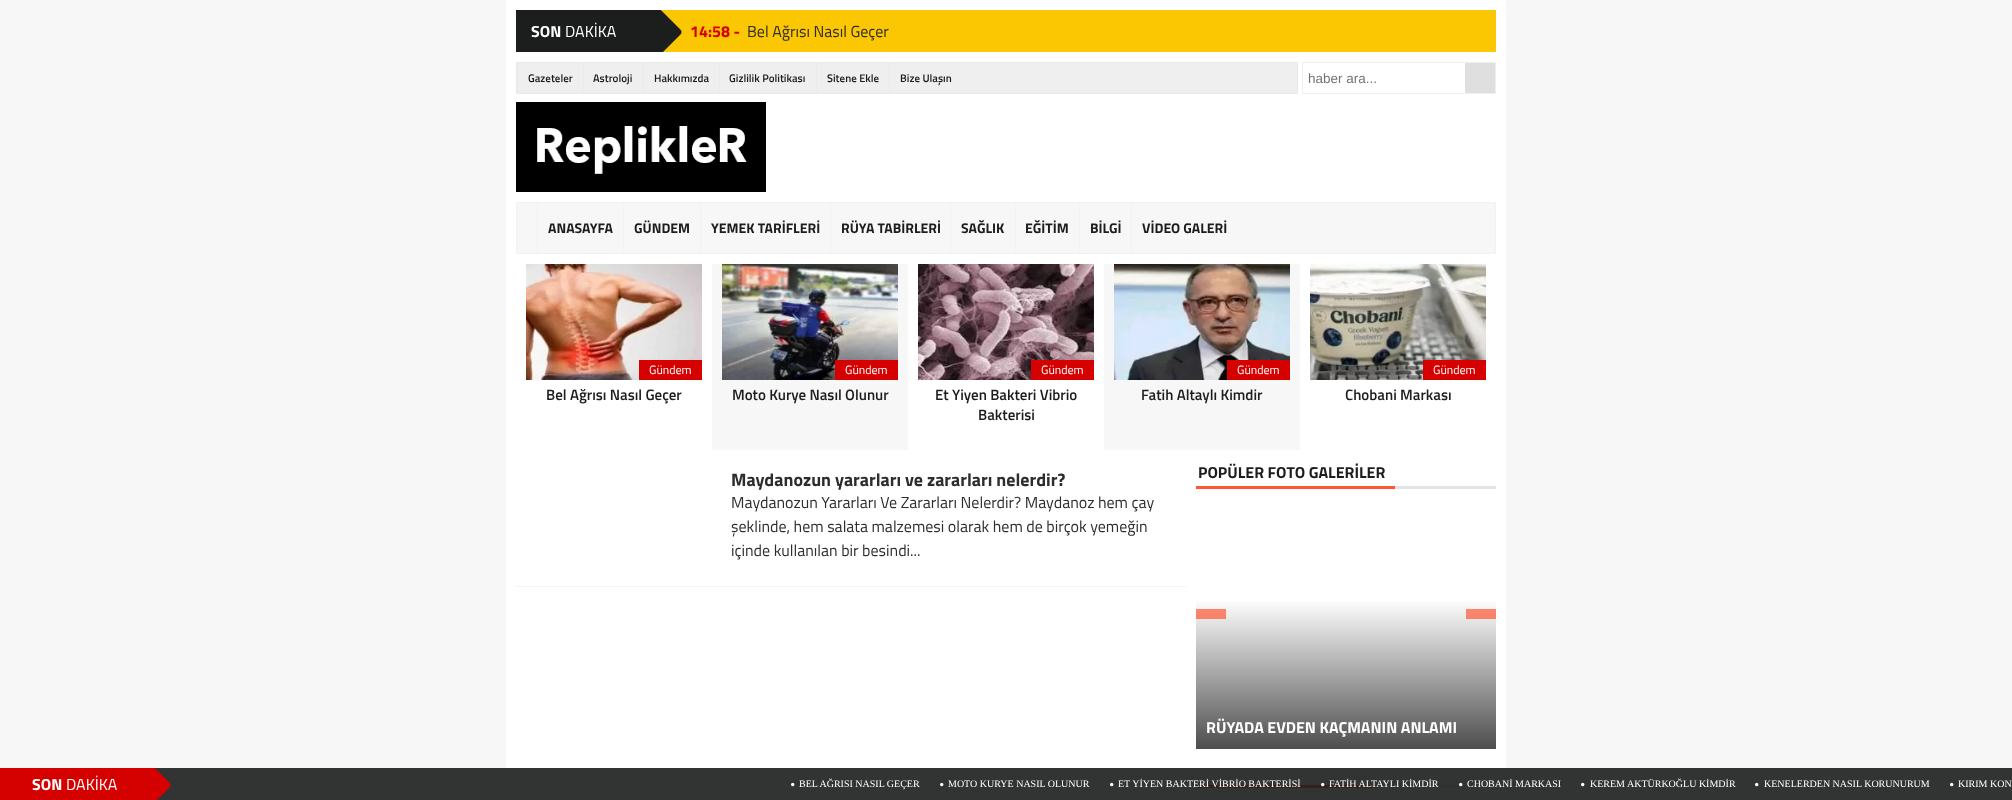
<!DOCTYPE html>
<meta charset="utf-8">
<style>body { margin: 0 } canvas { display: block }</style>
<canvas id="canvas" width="2012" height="800"></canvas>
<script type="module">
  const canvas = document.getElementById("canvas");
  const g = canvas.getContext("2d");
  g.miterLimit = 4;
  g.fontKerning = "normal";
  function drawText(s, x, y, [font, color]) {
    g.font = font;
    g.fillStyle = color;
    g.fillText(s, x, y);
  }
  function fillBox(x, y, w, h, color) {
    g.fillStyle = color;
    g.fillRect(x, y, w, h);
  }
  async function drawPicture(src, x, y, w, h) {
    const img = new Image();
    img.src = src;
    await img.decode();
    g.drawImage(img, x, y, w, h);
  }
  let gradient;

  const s1 = ["bold 16px Titillium Web", "#FFFFFF"];
  const s2 = ["16px Titillium Web", "#FFFFFF"];
  const s3 = ["bold 16px Titillium Web", "#D50000"];
  const s4 = ["16px Titillium Web", "#2D2D2D"];
  const s5 = ["600 11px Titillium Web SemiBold", "#1C1D1D"];
  const s6 = ["13.5px Liberation Sans", "#757575"];
  const s7 = ["bold 14px Titillium Web", "#1C1D1D"];
  const s8 = ["12px Titillium Web", "#FFFFFF"];
  const s9 = ["600 15px Titillium Web SemiBold", "#1C1D1D"];
  const s10 = ["bold 18px Titillium Web", "#2D2D2D"];
  const s11 = ["bold 16px Titillium Web", "#1C1D1D"];
  const s12 = ["10px Liberation Serif", "#FFFFFF"];

  fillBox(0, 0, 2012, 800, "#F7F7F7");
  fillBox(506, 0, 1000, 800, "#FFFFFF");
  fillBox(660, 10, 836, 42, "#FBC702");
  fillBox(516, 10, 140, 42, "#1C1D1D");
  drawText("SON", 531, 37, s1);
  drawText("DAKİKA", 565, 37, s2);
  await drawPicture("pic1.png", 656, 10, 26, 42);
  drawText("14:58 -", 690, 37, s3);
  drawText("Bel Ağrısı Nasıl Geçer", 747, 37, s4);
  fillBox(518, 63, 779, 30, "#EFEFEF");
  g.strokeStyle = "#EAEAEA";
  g.strokeRect(516.5, 62.5, 781, 31);
  fillBox(517, 63, 1, 30, "#EAEAEA");
  drawText("Gazeteler", 528, 82, s5);
  fillBox(583, 63, 1, 30, "#EAEAEA");
  drawText("Astroloji", 593, 82, s5);
  fillBox(643, 63, 1, 30, "#EAEAEA");
  drawText("Hakkımızda", 654, 82, s5);
  fillBox(719, 63, 1, 30, "#EAEAEA");
  drawText("Gizlilik Politikası", 729, 82, s5);
  fillBox(816, 63, 1, 30, "#EAEAEA");
  drawText("Sitene Ekle", 827, 82, s5);
  fillBox(889, 63, 1, 30, "#EAEAEA");
  drawText("Bize Ulaşın", 900, 82, s5);
  g.strokeStyle = "#EFEFEF";
  g.strokeRect(1302.5, 62.5, 193, 31);
  drawText("haber ara...", 1308, 83, s6);
  fillBox(1465, 63, 30, 30, "#DFDFDF");
  await drawPicture("pic2.png", 516, 102, 250, 90);
  g.fillStyle = "#F7F7F7";
  g.beginPath();
  g.rect(516.5, 202.5, 979, 51);
  g.fill();
  g.strokeStyle = "#F2F2F2";
  g.stroke();
  fillBox(537, 203, 1, 50, "#F2F2F2");
  drawText("ANASAYFA", 548, 233, s7);
  fillBox(623, 203, 1, 50, "#F2F2F2");
  drawText("GÜNDEM", 634, 233, s7);
  fillBox(700, 203, 1, 50, "#F2F2F2");
  drawText("YEMEK TARİFLERİ", 711, 233, s7);
  fillBox(830, 203, 1, 50, "#F2F2F2");
  drawText("RÜYA TABİRLERİ", 841, 233, s7);
  fillBox(950, 203, 1, 50, "#F2F2F2");
  drawText("SAĞLIK", 961, 233, s7);
  fillBox(1015, 203, 1, 50, "#F2F2F2");
  drawText("EĞİTİM", 1025, 233, s7);
  fillBox(1079, 203, 1, 50, "#F2F2F2");
  drawText("BİLGİ", 1090, 233, s7);
  fillBox(1131, 203, 1, 50, "#F2F2F2");
  drawText("VİDEO GALERİ", 1142, 233, s7);
  await drawPicture("pic3.png", 526, 264, 176, 116);
  fillBox(639, 360, 63, 20, "#D50000");
  drawText("Gündem", 649, 374, s8);
  drawText("Bel Ağrısı Nasıl Geçer", 546, 400, s9);
  fillBox(712, 264, 196, 186, "#F7F7F7");
  await drawPicture("pic4.png", 722, 264, 176, 116);
  fillBox(835, 360, 63, 20, "#D50000");
  drawText("Gündem", 845, 374, s8);
  drawText("Moto Kurye Nasıl Olunur", 732, 400, s9);
  await drawPicture("pic5.png", 918, 264, 176, 116);
  fillBox(1031, 360, 63, 20, "#D50000");
  drawText("Gündem", 1041, 374, s8);
  drawText("Et Yiyen Bakteri Vibrio", 935, 400, s9);
  drawText("Bakterisi", 978, 420, s9);
  fillBox(1104, 264, 196, 186, "#F7F7F7");
  await drawPicture("pic6.png", 1114, 264, 176, 116);
  fillBox(1227, 360, 63, 20, "#D50000");
  drawText("Gündem", 1237, 374, s8);
  drawText("Fatih Altaylı Kimdir", 1141, 400, s9);
  await drawPicture("pic7.png", 1310, 264, 176, 116);
  fillBox(1423, 360, 63, 20, "#D50000");
  drawText("Gündem", 1433, 374, s8);
  drawText("Chobani Markası", 1345, 400, s9);
  fillBox(516, 586, 670, 1, "#F5F5F5");
  drawText("Maydanozun yararları ve zararları nelerdir?", 731, 486, s10);
  drawText("Maydanozun Yararları Ve Zararları Nelerdir? Maydanoz hem çay", 731, 508, s4);
  drawText("şeklinde, hem salata malzemesi olarak hem de birçok yemeğin", 731, 532, s4);
  drawText("içinde kullanılan bir besindi...", 731, 556, s4);
  fillBox(1395, 486, 101, 3, "#E4E4E4");
  drawText("POPÜLER FOTO GALERİLER", 1198, 478, s11);
  fillBox(1196, 486, 199, 3, "#FF5732");
  gradient = g.createLinearGradient(1346, 599, 1346, 749);
  gradient.addColorStop(0, "#FFFFFF");
  gradient.addColorStop(1, "#4D4D4D");
  g.fillStyle = gradient;
  g.fillRect(1196, 601, 300, 148);
  gradient = g.createLinearGradient(1346, 599, 1346, 749);
  gradient.addColorStop(0, "#FF8970");
  gradient.addColorStop(1, "#CA543A");
  g.fillStyle = gradient;
  g.fillRect(1196, 609, 30, 10);
  g.fillRect(1466, 609, 30, 10);
  drawText("RÜYADA EVDEN KAÇMANIN ANLAMI", 1206, 733, s1);
  fillBox(1378, 785, 118, 3, "#E4E4E4");
  fillBox(1196, 785, 182, 3, "#FF5732");
  fillBox(154, 768, 1858, 32, "rgba(28, 29, 29, 0.9)");
  fillBox(0, 768, 150, 32, "#D50000");
  drawText("SON", 32, 790, s1);
  drawText("DAKİKA", 66, 790, s2);
  await drawPicture("pic8.png", 150, 768, 21, 32);
  await drawPicture("pic9.png", 791, 782, 4, 5);
  drawText("BEL AĞRISI NASIL GEÇER", 799, 787, s12);
  await drawPicture("pic9.png", 940, 782, 4, 5);
  drawText("MOTO KURYE NASIL OLUNUR", 948, 787, s12);
  await drawPicture("pic9.png", 1110, 782, 4, 5);
  drawText("ET YİYEN BAKTERİ VİBRİO BAKTERİSİ", 1118, 787, s12);
  await drawPicture("pic10.png", 1321, 782, 4, 5);
  drawText("FATİH ALTAYLI KİMDİR", 1329, 787, s12);
  await drawPicture("pic11.png", 1459, 782, 4, 5);
  drawText("CHOBANİ MARKASI", 1467, 787, s12);
  await drawPicture("pic12.png", 1581, 782, 4, 5);
  drawText("KEREM AKTÜRKOĞLU KİMDİR", 1590, 787, s12);
  await drawPicture("pic12.png", 1755, 782, 4, 5);
  drawText("KENELERDEN NASIL KORUNURUM", 1764, 787, s12);
  await drawPicture("pic12.png", 1950, 782, 4, 5);
  drawText("KIRIM KON", 1958, 787, s12);
</script>
